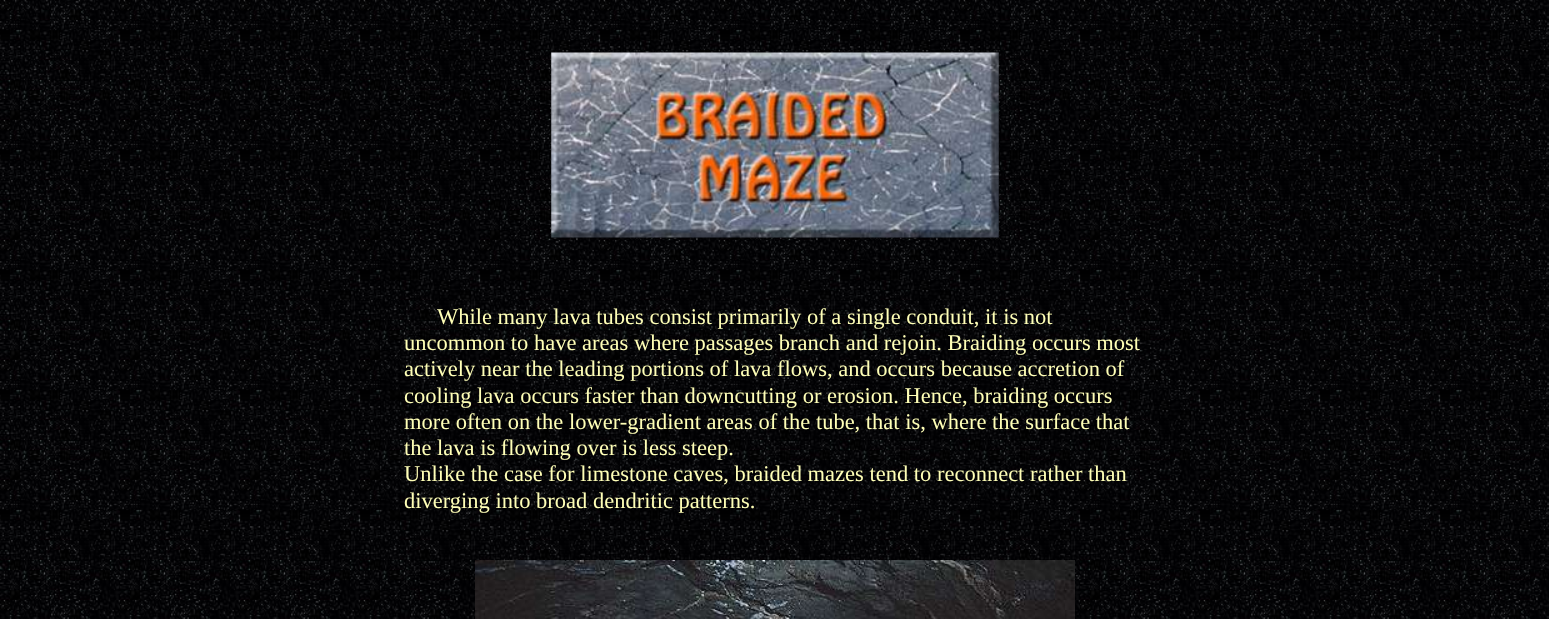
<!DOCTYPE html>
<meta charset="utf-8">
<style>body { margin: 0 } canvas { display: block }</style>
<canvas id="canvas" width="1549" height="619"></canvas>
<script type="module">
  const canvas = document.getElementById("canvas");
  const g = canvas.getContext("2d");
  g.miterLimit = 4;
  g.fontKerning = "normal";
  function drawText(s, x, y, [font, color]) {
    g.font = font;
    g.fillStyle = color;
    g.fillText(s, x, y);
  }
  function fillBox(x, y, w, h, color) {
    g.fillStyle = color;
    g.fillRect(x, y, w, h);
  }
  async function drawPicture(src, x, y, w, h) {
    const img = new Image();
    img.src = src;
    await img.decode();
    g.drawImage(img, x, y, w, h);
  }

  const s1 = ["22.5px Liberation Serif", "#FFFFB7"];

  fillBox(0, 0, 1549, 619, "#FFFFFF");
  await drawPicture("pic1.png", 0, 0, 1549, 619);
  await drawPicture("pic2.png", 551, 52, 448, 186);
  drawText("While many lava tubes consist primarily of a single conduit, it is not", 437, 324, s1);
  drawText("uncommon to have areas where passages branch and rejoin. Braiding occurs most", 404, 350, s1);
  drawText("actively near the leading portions of lava flows, and occurs because accretion of", 404, 376, s1);
  drawText("cooling lava occurs faster than downcutting or erosion. Hence, braiding occurs", 404, 403, s1);
  drawText("more often on the lower-gradient areas of the tube, that is, where the surface that", 404, 429, s1);
  drawText("the lava is flowing over is less steep.", 404, 455, s1);
  drawText("Unlike the case for limestone caves, braided mazes tend to reconnect rather than", 404, 481, s1);
  drawText("diverging into broad dendritic patterns.", 404, 508, s1);
  await drawPicture("pic3.png", 475, 560, 600, 59);
</script>
